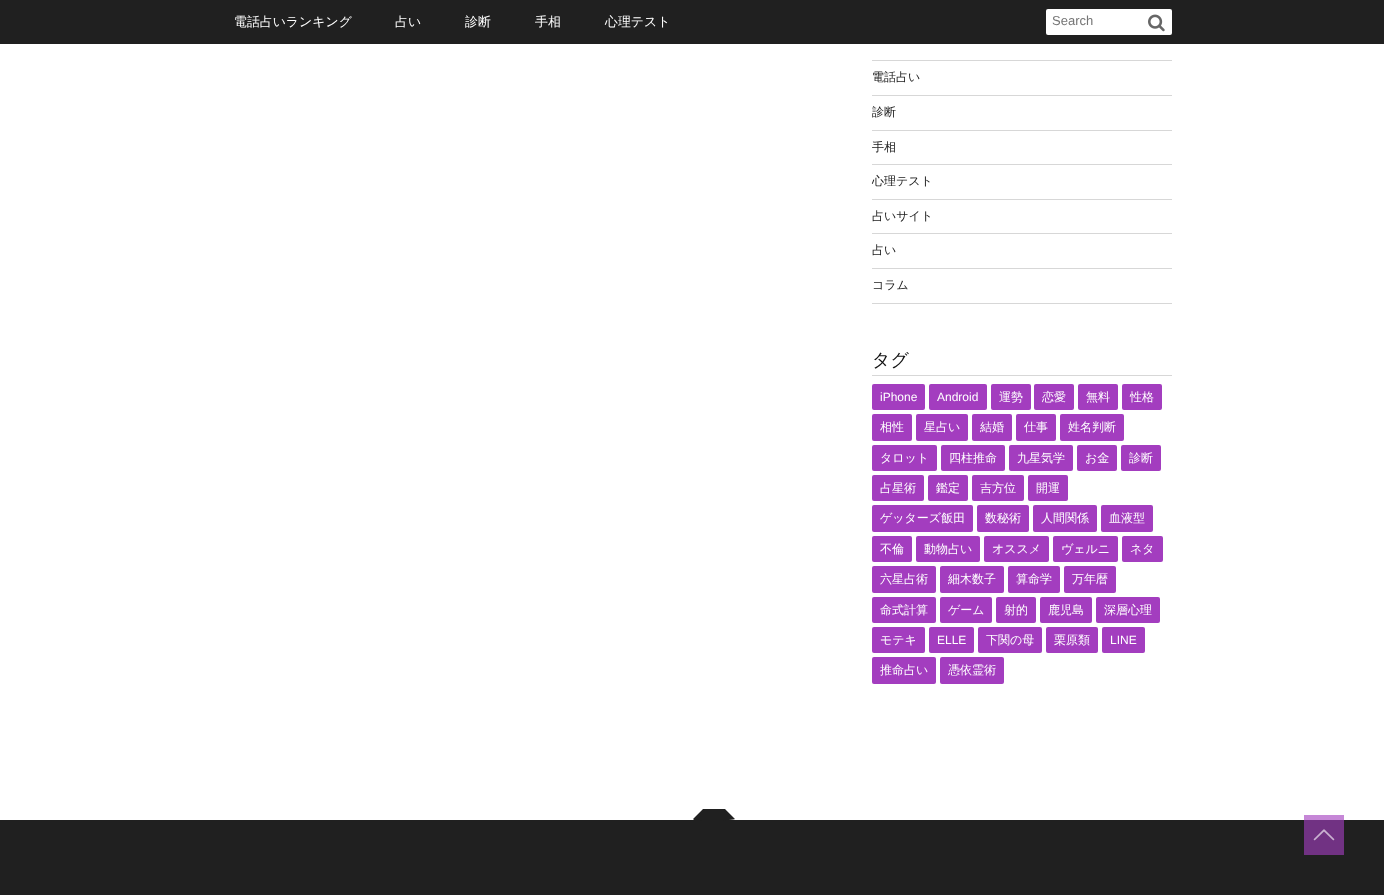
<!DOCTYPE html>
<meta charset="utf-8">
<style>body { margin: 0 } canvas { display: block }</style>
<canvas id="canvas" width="1384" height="895"></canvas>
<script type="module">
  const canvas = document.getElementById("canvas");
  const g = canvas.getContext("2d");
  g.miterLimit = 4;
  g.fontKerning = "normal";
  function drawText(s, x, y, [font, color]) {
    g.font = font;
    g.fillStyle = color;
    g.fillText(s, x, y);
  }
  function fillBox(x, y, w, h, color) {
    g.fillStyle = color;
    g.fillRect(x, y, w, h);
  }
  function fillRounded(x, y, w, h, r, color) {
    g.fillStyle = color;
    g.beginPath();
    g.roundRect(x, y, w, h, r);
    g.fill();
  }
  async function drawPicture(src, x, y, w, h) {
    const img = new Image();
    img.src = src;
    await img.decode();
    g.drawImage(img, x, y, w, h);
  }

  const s1 = ["500 12.9px WenQuanYi Zen Hei", "#FFFFFF"];
  const s2 = ["13px Liberation Sans", "#757575"];
  const s3 = ["500 12px WenQuanYi Zen Hei", "#202020"];
  const s4 = ["500 18px WenQuanYi Zen Hei", "#0F0F0F"];
  const s5 = ["12px Liberation Sans", "#FFFFFF"];
  const s6 = ["500 12px WenQuanYi Zen Hei", "#FFFFFF"];

  fillBox(0, 0, 1384, 895, "#FFFFFF");
  fillBox(1304, 815, 40, 5, "#C687D7");
  fillBox(0, 0, 1384, 44, "#202020");
  drawText("電話占いランキング", 234, 26, s1);
  drawText("占い", 395, 26, s1);
  drawText("診断", 465, 26, s1);
  drawText("手相", 535, 26, s1);
  drawText("心理テスト", 605, 26, s1);
  fillRounded(1046, 9, 126, 26, 2, "#FFFFFF");
  drawText("Search", 1052, 25, s2);
  await drawPicture("pic1.png", 1148, 14, 17, 18);
  fillBox(872, 60, 300, 1, "#D7D7D7");
  fillBox(872, 95, 300, 1, "#D7D7D7");
  drawText("電話占い", 872, 81, s3);
  fillBox(872, 130, 300, 1, "#D7D7D7");
  drawText("診断", 872, 116, s3);
  fillBox(872, 164, 300, 1, "#D7D7D7");
  drawText("手相", 872, 151, s3);
  fillBox(872, 199, 300, 1, "#D7D7D7");
  drawText("心理テスト", 872, 185, s3);
  fillBox(872, 233, 300, 1, "#D7D7D7");
  drawText("占いサイト", 872, 220, s3);
  fillBox(872, 268, 300, 1, "#D7D7D7");
  drawText("占い", 872, 254, s3);
  fillBox(872, 303, 300, 1, "#D7D7D7");
  drawText("コラム", 872, 289, s3);
  fillBox(872, 375, 300, 1, "#D7D7D7");
  drawText("タグ", 872, 366, s4);
  fillRounded(872, 384, 53, 26, 2, "#A33DBF");
  drawText("iPhone", 880, 401, s5);
  fillRounded(929, 384, 58, 26, 2, "#A33DBF");
  drawText("Android", 937, 401, s5);
  fillRounded(991, 384, 40, 26, 2, "#A33DBF");
  drawText("運勢", 999, 401, s6);
  fillRounded(1034, 384, 40, 26, 2, "#A33DBF");
  drawText("恋愛", 1042, 401, s6);
  fillRounded(1078, 384, 40, 26, 2, "#A33DBF");
  drawText("無料", 1086, 401, s6);
  fillRounded(1122, 384, 40, 26, 2, "#A33DBF");
  drawText("性格", 1130, 401, s6);
  fillRounded(872, 414, 40, 27, 2, "#A33DBF");
  drawText("相性", 880, 431, s6);
  fillRounded(916, 414, 52, 27, 2, "#A33DBF");
  drawText("星占い", 924, 431, s6);
  fillRounded(972, 414, 40, 27, 2, "#A33DBF");
  drawText("結婚", 980, 431, s6);
  fillRounded(1016, 414, 40, 27, 2, "#A33DBF");
  drawText("仕事", 1024, 431, s6);
  fillRounded(1060, 414, 64, 27, 2, "#A33DBF");
  drawText("姓名判断", 1068, 431, s6);
  fillRounded(872, 445, 65, 26, 2, "#A33DBF");
  drawText("タロット", 880, 462, s6);
  fillRounded(941, 445, 64, 26, 2, "#A33DBF");
  drawText("四柱推命", 949, 462, s6);
  fillRounded(1009, 445, 64, 26, 2, "#A33DBF");
  drawText("九星気学", 1017, 462, s6);
  fillRounded(1077, 445, 40, 26, 2, "#A33DBF");
  drawText("お金", 1085, 462, s6);
  fillRounded(1121, 445, 40, 26, 2, "#A33DBF");
  drawText("診断", 1129, 462, s6);
  fillRounded(872, 475, 52, 26, 2, "#A33DBF");
  drawText("占星術", 880, 492, s6);
  fillRounded(928, 475, 40, 26, 2, "#A33DBF");
  drawText("鑑定", 936, 492, s6);
  fillRounded(972, 475, 52, 26, 2, "#A33DBF");
  drawText("吉方位", 980, 492, s6);
  fillRounded(1028, 475, 40, 26, 2, "#A33DBF");
  drawText("開運", 1036, 492, s6);
  fillRounded(872, 505, 101, 27, 2, "#A33DBF");
  drawText("ゲッターズ飯田", 880, 522, s6);
  fillRounded(977, 505, 52, 27, 2, "#A33DBF");
  drawText("数秘術", 985, 522, s6);
  fillRounded(1033, 505, 64, 27, 2, "#A33DBF");
  drawText("人間関係", 1041, 522, s6);
  fillRounded(1101, 505, 52, 27, 2, "#A33DBF");
  drawText("血液型", 1109, 522, s6);
  fillRounded(872, 536, 40, 26, 2, "#A33DBF");
  drawText("不倫", 880, 553, s6);
  fillRounded(916, 536, 64, 26, 2, "#A33DBF");
  drawText("動物占い", 924, 553, s6);
  fillRounded(984, 536, 65, 26, 2, "#A33DBF");
  drawText("オススメ", 992, 553, s6);
  fillRounded(1053, 536, 65, 26, 2, "#A33DBF");
  drawText("ヴェルニ", 1061, 553, s6);
  fillRounded(1122, 536, 41, 26, 2, "#A33DBF");
  drawText("ネタ", 1130, 553, s6);
  fillRounded(872, 566, 64, 27, 2, "#A33DBF");
  drawText("六星占術", 880, 583, s6);
  fillRounded(940, 566, 64, 27, 2, "#A33DBF");
  drawText("細木数子", 948, 583, s6);
  fillRounded(1008, 566, 52, 27, 2, "#A33DBF");
  drawText("算命学", 1016, 583, s6);
  fillRounded(1064, 566, 52, 27, 2, "#A33DBF");
  drawText("万年暦", 1072, 583, s6);
  fillRounded(872, 597, 64, 26, 2, "#A33DBF");
  drawText("命式計算", 880, 614, s6);
  fillRounded(940, 597, 52, 26, 2, "#A33DBF");
  drawText("ゲーム", 948, 614, s6);
  fillRounded(996, 597, 40, 26, 2, "#A33DBF");
  drawText("射的", 1004, 614, s6);
  fillRounded(1040, 597, 52, 26, 2, "#A33DBF");
  drawText("鹿児島", 1048, 614, s6);
  fillRounded(1096, 597, 64, 26, 2, "#A33DBF");
  drawText("深層心理", 1104, 614, s6);
  fillRounded(872, 627, 53, 26, 2, "#A33DBF");
  drawText("モテキ", 880, 644, s6);
  fillRounded(929, 627, 45, 26, 2, "#A33DBF");
  drawText("ELLE", 937, 644, s5);
  fillRounded(978, 627, 64, 26, 2, "#A33DBF");
  drawText("下関の母", 986, 644, s6);
  fillRounded(1046, 627, 52, 26, 2, "#A33DBF");
  drawText("栗原類", 1054, 644, s6);
  fillRounded(1102, 627, 43, 26, 2, "#A33DBF");
  drawText("LINE", 1110, 644, s5);
  fillRounded(872, 657, 64, 27, 2, "#A33DBF");
  drawText("推命占い", 880, 674, s6);
  fillRounded(940, 657, 64, 27, 2, "#A33DBF");
  drawText("憑依霊術", 948, 674, s6);
  fillBox(0, 820, 1384, 75, "#202020");
  fillBox(1304, 820, 40, 35, "#713283");
  g.fillStyle = "#202020";
  g.beginPath();
  g.moveTo(694, 820);
  g.bezierCurveTo(699, 820, 734, 821, 735, 819);
  g.lineTo(725, 809);
  g.lineTo(703, 809);
  g.lineTo(693, 819);
  g.closePath();
  g.fill();
  await drawPicture("pic2.png", 1313, 829, 22, 12);
</script>
